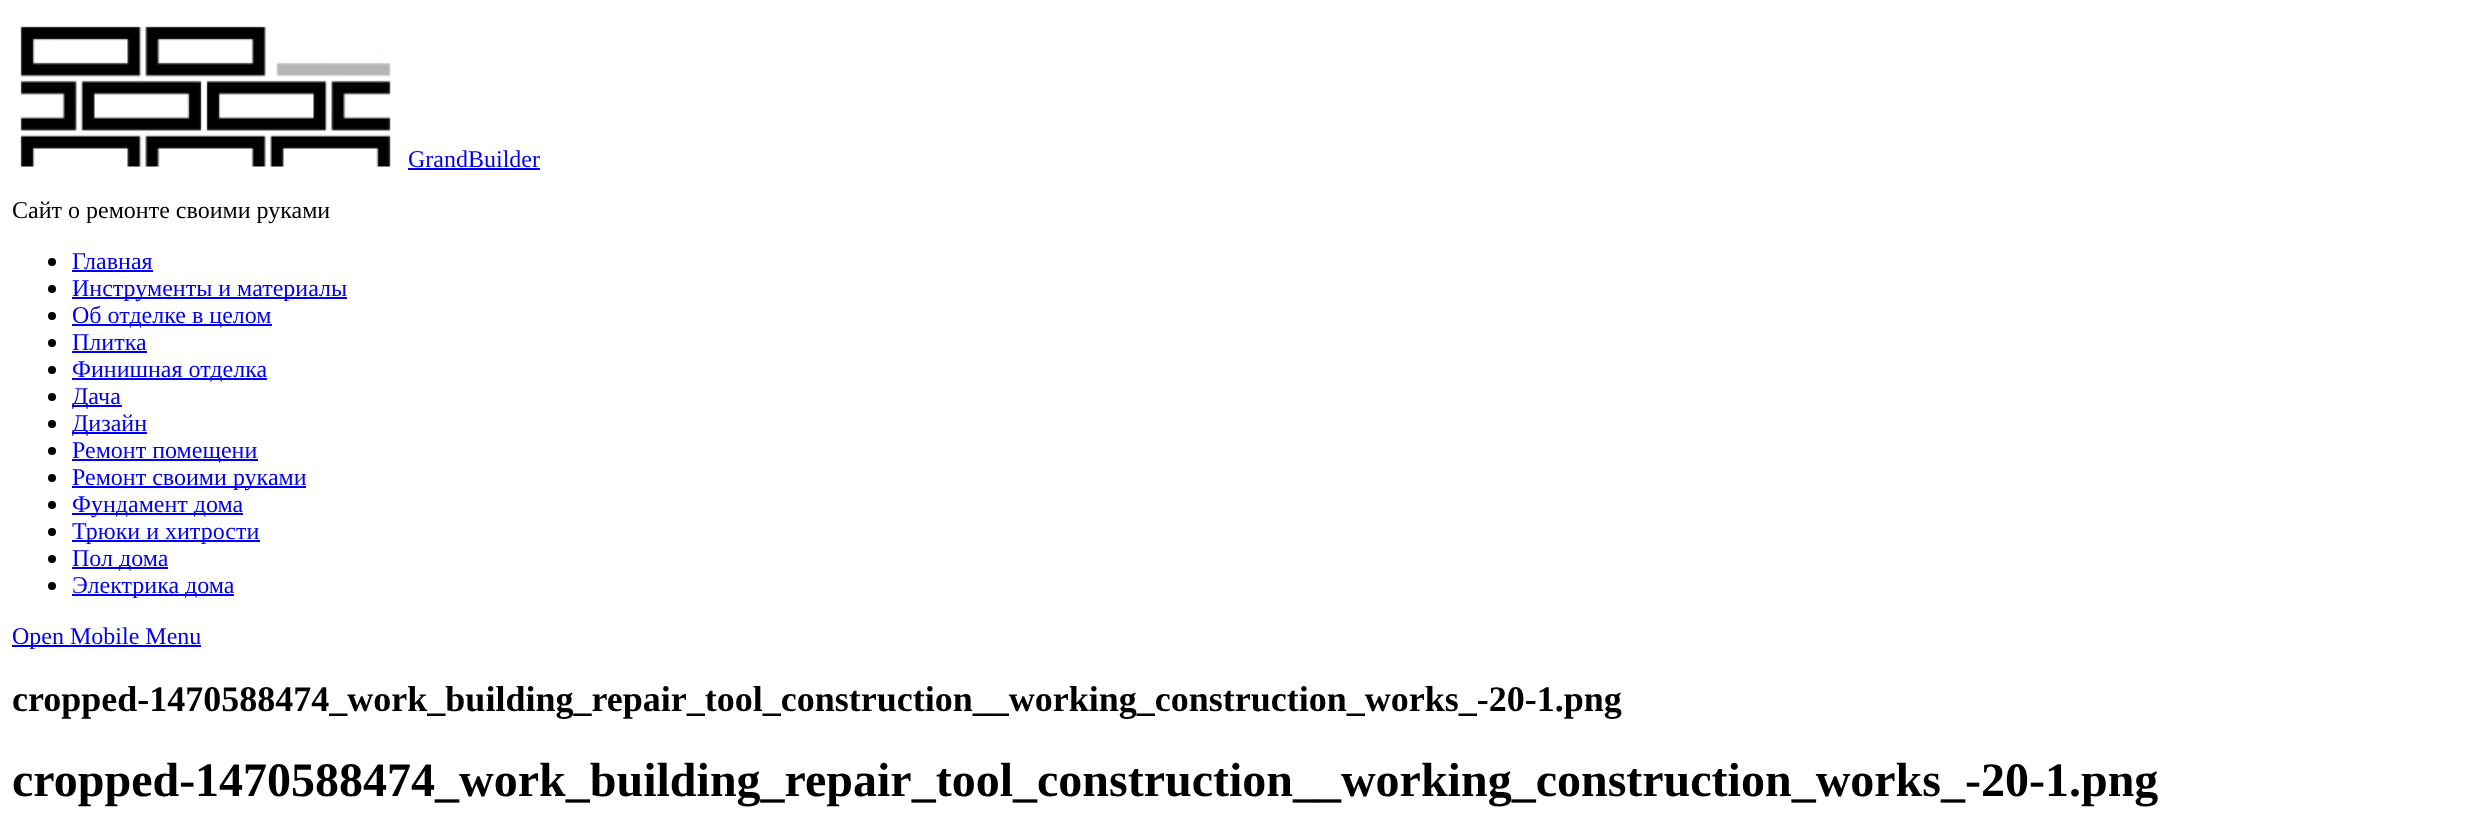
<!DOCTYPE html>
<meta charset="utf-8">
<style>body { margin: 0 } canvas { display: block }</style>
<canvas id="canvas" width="2485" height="825"></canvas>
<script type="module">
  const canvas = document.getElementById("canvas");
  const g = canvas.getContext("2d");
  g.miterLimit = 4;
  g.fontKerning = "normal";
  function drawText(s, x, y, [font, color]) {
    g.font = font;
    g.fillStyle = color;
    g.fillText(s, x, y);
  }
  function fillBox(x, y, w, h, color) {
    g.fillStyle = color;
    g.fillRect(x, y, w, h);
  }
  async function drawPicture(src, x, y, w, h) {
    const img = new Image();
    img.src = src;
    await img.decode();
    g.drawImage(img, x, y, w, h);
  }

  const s1 = ["24px Liberation Serif", "#0000EE"];
  const s2 = ["24px Liberation Serif", "#000000"];
  const s3 = ["bold 36px Liberation Serif", "#000000"];
  const s4 = ["bold 48px Liberation Serif", "#000000"];

  fillBox(0, 0, 2485, 825, "#FFFFFF");
  await drawPicture("pic1.png", 20, 26, 371, 141);
  drawText("GrandBuilder", 408, 167, s1);
  fillBox(408, 168, 132, 2, "#0000EE");
  drawText("Сайт о ремонте своими руками", 12, 218, s2);
  g.beginPath();
  g.arc(52, 262, 4, 0, Math.PI * 2);
  g.fill();
  drawText("Главная", 72, 269, s1);
  fillBox(72, 270, 81, 2, "#0000EE");
  g.fillStyle = "#000000";
  g.beginPath();
  g.arc(52, 289, 4, 0, Math.PI * 2);
  g.fill();
  fillBox(72, 297, 275, 2, "#0000EE");
  drawText("Инструменты и материалы", 72, 296, s1);
  g.fillStyle = "#000000";
  g.beginPath();
  g.arc(52, 316, 4, 0, Math.PI * 2);
  g.fill();
  fillBox(72, 324, 200, 2, "#0000EE");
  drawText("Об отделке в целом", 72, 323, s1);
  g.fillStyle = "#000000";
  g.beginPath();
  g.arc(52, 343, 4, 0, Math.PI * 2);
  g.fill();
  drawText("Плитка", 72, 350, s1);
  fillBox(72, 351, 75, 2, "#0000EE");
  g.fillStyle = "#000000";
  g.beginPath();
  g.arc(52, 370, 4, 0, Math.PI * 2);
  g.fill();
  fillBox(72, 378, 195, 2, "#0000EE");
  drawText("Финишная отделка", 72, 377, s1);
  g.fillStyle = "#000000";
  g.beginPath();
  g.arc(52, 397, 4, 0, Math.PI * 2);
  g.fill();
  fillBox(72, 405, 50, 2, "#0000EE");
  drawText("Дача", 72, 404, s1);
  g.fillStyle = "#000000";
  g.beginPath();
  g.arc(52, 424, 4, 0, Math.PI * 2);
  g.fill();
  fillBox(72, 432, 75, 2, "#0000EE");
  drawText("Дизайн", 72, 431, s1);
  g.fillStyle = "#000000";
  g.beginPath();
  g.arc(52, 451, 4, 0, Math.PI * 2);
  g.fill();
  fillBox(72, 459, 186, 2, "#0000EE");
  drawText("Ремонт помещени", 72, 458, s1);
  g.fillStyle = "#000000";
  g.beginPath();
  g.arc(52, 478, 4, 0, Math.PI * 2);
  g.fill();
  fillBox(72, 486, 234, 2, "#0000EE");
  drawText("Ремонт своими руками", 72, 485, s1);
  g.fillStyle = "#000000";
  g.beginPath();
  g.arc(52, 505, 4, 0, Math.PI * 2);
  g.fill();
  fillBox(72, 513, 171, 2, "#0000EE");
  drawText("Фундамент дома", 72, 512, s1);
  g.fillStyle = "#000000";
  g.beginPath();
  g.arc(52, 532, 4, 0, Math.PI * 2);
  g.fill();
  fillBox(72, 540, 188, 2, "#0000EE");
  drawText("Трюки и хитрости", 72, 539, s1);
  g.fillStyle = "#000000";
  g.beginPath();
  g.arc(52, 559, 4, 0, Math.PI * 2);
  g.fill();
  fillBox(72, 567, 96, 2, "#0000EE");
  drawText("Пол дома", 72, 566, s1);
  g.fillStyle = "#000000";
  g.beginPath();
  g.arc(52, 586, 4, 0, Math.PI * 2);
  g.fill();
  fillBox(72, 594, 162, 2, "#0000EE");
  drawText("Электрика дома", 72, 593, s1);
  fillBox(12, 645, 189, 2, "#0000EE");
  drawText("Open Mobile Menu", 12, 644, s1);
  drawText("cropped-1470588474_work_building_repair_tool_construction__working_construction_works_-20-1.png", 12, 711, s3);
  drawText("cropped-1470588474_work_building_repair_tool_construction__working_construction_works_-20-1.png", 12, 796, s4);
</script>
